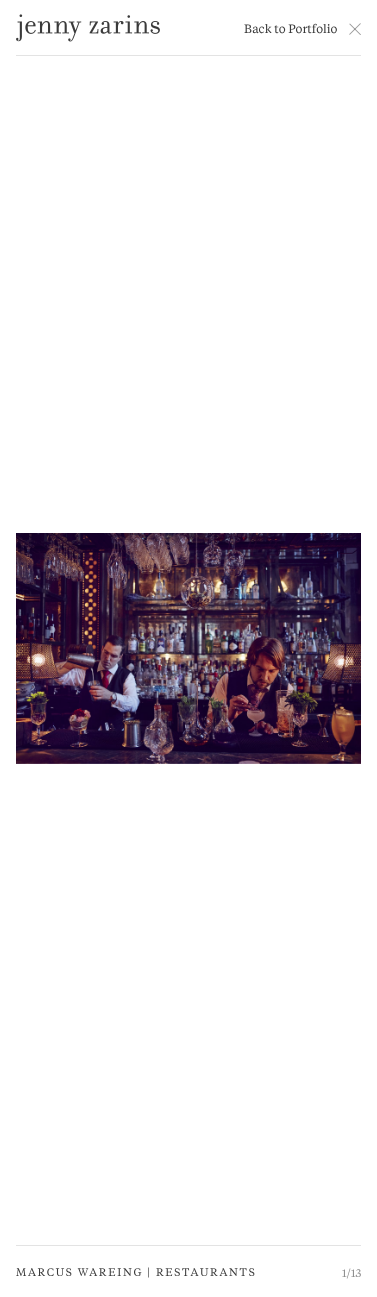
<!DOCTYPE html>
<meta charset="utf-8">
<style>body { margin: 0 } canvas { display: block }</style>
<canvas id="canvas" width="377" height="1297"></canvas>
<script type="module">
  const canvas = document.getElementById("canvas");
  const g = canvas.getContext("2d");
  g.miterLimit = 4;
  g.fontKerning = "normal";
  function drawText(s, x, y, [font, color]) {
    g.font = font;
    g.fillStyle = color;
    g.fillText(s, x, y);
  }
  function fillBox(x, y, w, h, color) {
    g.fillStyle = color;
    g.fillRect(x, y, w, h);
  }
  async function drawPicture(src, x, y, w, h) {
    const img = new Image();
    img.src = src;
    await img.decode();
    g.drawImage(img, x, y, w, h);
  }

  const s1 = ["12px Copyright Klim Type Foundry", "#3A3A3A"];
  const s2 = ["11px Copyright Klim Type Foundry", "#3A3A3A"];
  const s3 = ["11px Copyright Klim Type Foundry", "#8F8F8F"];

  fillBox(0, 0, 377, 1297, "#FFFFFF");
  fillBox(16, 55, 345, 1, "#E3E3E3");
  await drawPicture("pic1.png", 16, 14, 144, 28);
  drawText("Back to Portfolio", 244, 33, s1);
  await drawPicture("pic2.png", 349, 23, 12, 12);
  await drawPicture("pic3.png", 16, 533, 345, 231);
  fillBox(16, 1245, 345, 1, "#E3E3E3");
  g.letterSpacing = "1.65px";
  drawText("MARCUS WAREING | RESTAURANTS", 16, 1276, s2);
  g.letterSpacing = "0px";
  drawText("1/", 342, 1277, s3);
  drawText("13", 351, 1277, s3);
</script>
